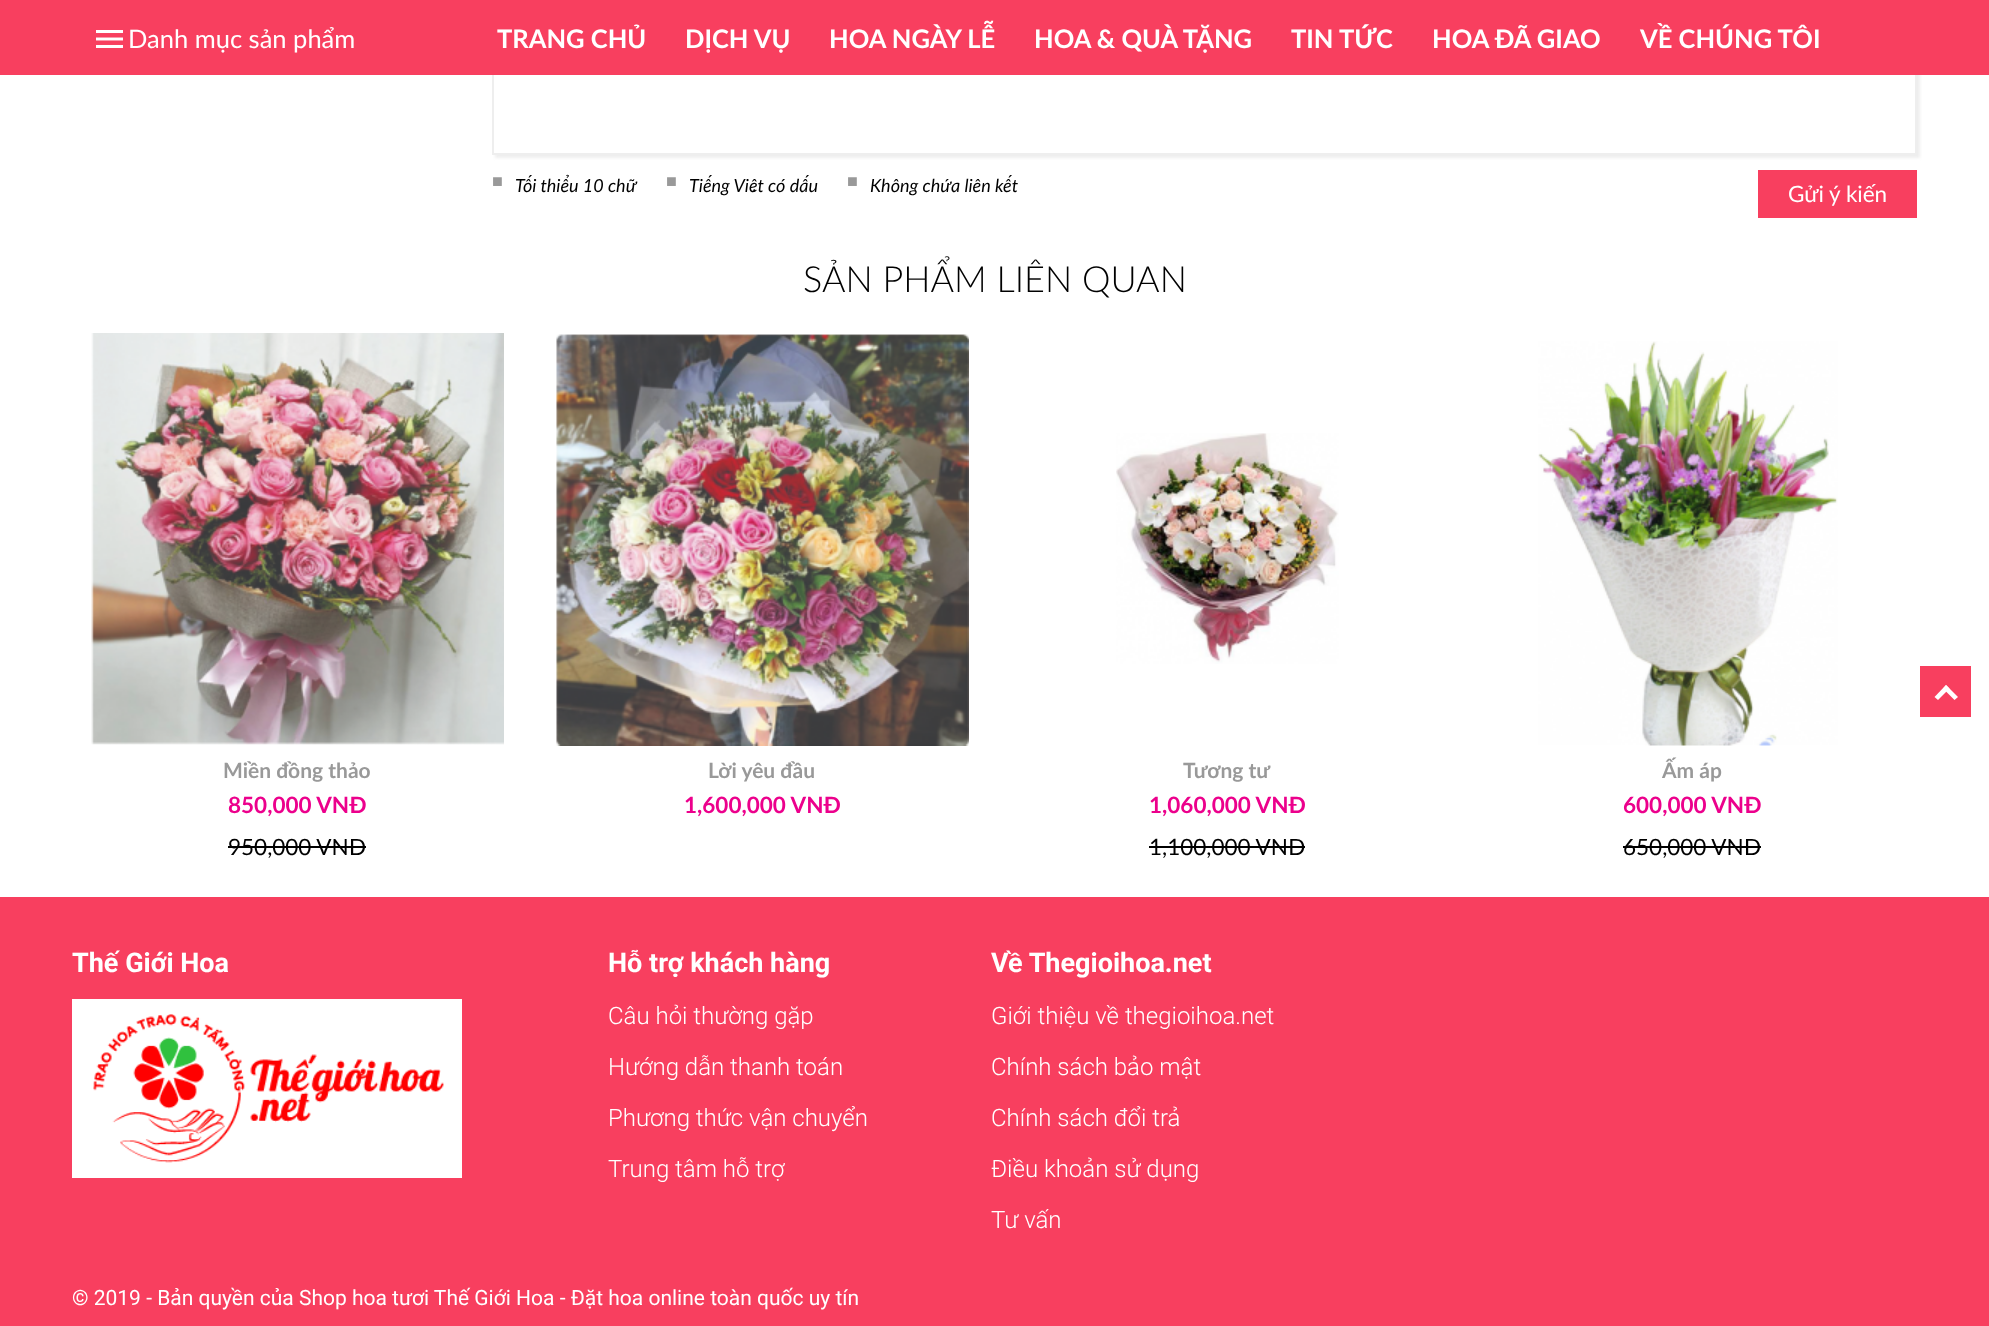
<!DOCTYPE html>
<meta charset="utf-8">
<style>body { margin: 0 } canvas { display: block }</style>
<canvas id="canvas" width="1989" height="1326"></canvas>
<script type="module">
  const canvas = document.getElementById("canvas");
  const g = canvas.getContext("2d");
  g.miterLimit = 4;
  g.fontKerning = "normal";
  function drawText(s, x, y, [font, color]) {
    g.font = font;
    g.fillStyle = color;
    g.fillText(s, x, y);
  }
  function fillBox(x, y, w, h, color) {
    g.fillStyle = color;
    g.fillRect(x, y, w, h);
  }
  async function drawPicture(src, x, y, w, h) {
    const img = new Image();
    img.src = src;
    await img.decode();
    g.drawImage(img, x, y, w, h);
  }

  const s1 = ["25.5px Lato", "#FFFFFF"];
  const s2 = ["bold 25.5px Lato", "#FFFFFF"];
  const s3 = ["italic 18px Liberation Sans", "#999999"];
  const s4 = ["italic 18px Lato", "#000000"];
  const s5 = ["22.5px Lato", "#FFFFFF"];
  const s6 = ["300 36px Lato", "#000000"];
  const s7 = ["bold 21px Lato", "#999999"];
  const s8 = ["bold 22.5px Lato", "#EC008C"];
  const s9 = ["22.5px Lato", "#000000"];
  const s10 = ["bold 27px Roboto", "#FFFFFF"];
  const s11 = ["300 24px Roboto", "#FFFFFF"];
  const s12 = ["21px Roboto", "#FFFFFF"];

  fillBox(0, 0, 1989, 1326, "#FFFFFF");
  g.fillStyle = "#EEEEEE";
  g.filter = "blur(1.5px)";
  g.beginPath();
  g.rect(495, -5, 1425, 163);
  g.fill();
  g.filter = "none";
  fillBox(494, 75, 1421, 78, "#FFFFFF");
  g.strokeStyle = "#EEEEEE";
  g.lineWidth = 2;
  g.strokeRect(493, -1, 1423, 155);
  fillBox(0, 0, 1989, 75, "#F83F5F");
  await drawPicture("pic1.png", 96, 30, 27, 18);
  drawText("Danh mục sản phẩm", 128, 48, s1);
  drawText("TRANG CHỦ", 497, 48, s2);
  drawText("DỊCH VỤ", 685, 48, s2);
  drawText("HOA NGÀY LỄ", 829, 48, s2);
  drawText("HOA & QUÀ TẶNG", 1034, 48, s2);
  drawText("TIN TỨC", 1291, 48, s2);
  drawText("HOA ĐÃ GIAO", 1432, 48, s2);
  drawText("VỀ CHÚNG TÔI", 1640, 48, s2);
  drawText("■", 492, 187, s3);
  drawText("Tối thiểu 10 chữ", 515, 192, s4);
  drawText("■", 666, 187, s3);
  drawText("Tiếng Việt có dấu", 689, 192, s4);
  drawText("■", 847, 187, s3);
  drawText("Không chứa liên kết", 870, 192, s4);
  fillBox(1758, 170, 159, 48, "#F83F5F");
  drawText("Gửi ý kiến", 1788, 202, s5);
  drawText("SẢN PHẨM LIÊN QUAN", 803, 292, s6);
  await drawPicture("pic2.png", 91, 333, 413, 412);
  drawText("Miền đồng thảo", 223, 778, s7);
  drawText("850,000 VNĐ", 228, 813, s8);
  drawText("950,000 VNĐ", 228, 855, s9);
  fillBox(228, 846, 138, 2, "#000000");
  await drawPicture("pic3.png", 556, 334, 413, 412);
  drawText("Lời yêu đầu", 708, 778, s7);
  drawText("1,600,000 VNĐ", 684, 813, s8);
  await drawPicture("pic4.png", 1116, 433, 223, 231);
  drawText("Tương tư", 1183, 778, s7);
  drawText("1,060,000 VNĐ", 1149, 813, s8);
  drawText("1,100,000 VNĐ", 1149, 855, s9);
  fillBox(1149, 846, 156, 2, "#000000");
  await drawPicture("pic5.png", 1538, 341, 300, 405);
  drawText("Ấm áp", 1662, 778, s7);
  drawText("600,000 VNĐ", 1623, 813, s8);
  drawText("650,000 VNĐ", 1623, 855, s9);
  fillBox(1623, 846, 138, 2, "#000000");
  g.fillStyle = "#F83F5F";
  g.beginPath();
  g.roundRect(1918.5, 664.5, 54, 54, 1.5);
  g.fill();
  g.strokeStyle = "#FFFFFF";
  g.lineWidth = 3;
  g.stroke();
  g.fillStyle = "#FFFFFF";
  g.beginPath();
  g.moveTo(1938, 700);
  g.lineTo(1934.5, 697);
  g.lineTo(1946, 685);
  g.lineTo(1949.5, 688.5);
  g.closePath();
  g.fill();
  g.beginPath();
  g.moveTo(1954.5, 700);
  g.lineTo(1943, 688.5);
  g.lineTo(1946, 685);
  g.lineTo(1958, 697);
  g.closePath();
  g.fill();
  fillBox(0, 897, 1989, 429, "#F83F5F");
  drawText("Thế Giới Hoa", 72, 972, s10);
  fillBox(72, 999, 390, 179, "#FFFFFF");
  await drawPicture("pic6.png", 93, 1014, 351, 149);
  drawText("Hỗ trợ khách hàng", 608, 972, s10);
  drawText("Câu hỏi thường gặp", 608, 1024, s11);
  drawText("Hướng dẫn thanh toán", 608, 1075, s11);
  drawText("Phương thức vận chuyển", 608, 1126, s11);
  drawText("Trung tâm hỗ trợ", 608, 1177, s11);
  drawText("Về Thegioihoa.net", 991, 972, s10);
  drawText("Giới thiệu về thegioihoa.net", 991, 1024, s11);
  drawText("Chính sách bảo mật", 991, 1075, s11);
  drawText("Chính sách đổi trả", 991, 1126, s11);
  drawText("Điều khoản sử dụng", 991, 1177, s11);
  drawText("Tư vấn", 991, 1228, s11);
  drawText("© 2019 - Bản quyền của Shop hoa tươi Thế Giới Hoa - Đặt hoa online toàn quốc uy tín", 72, 1305, s12);
</script>
